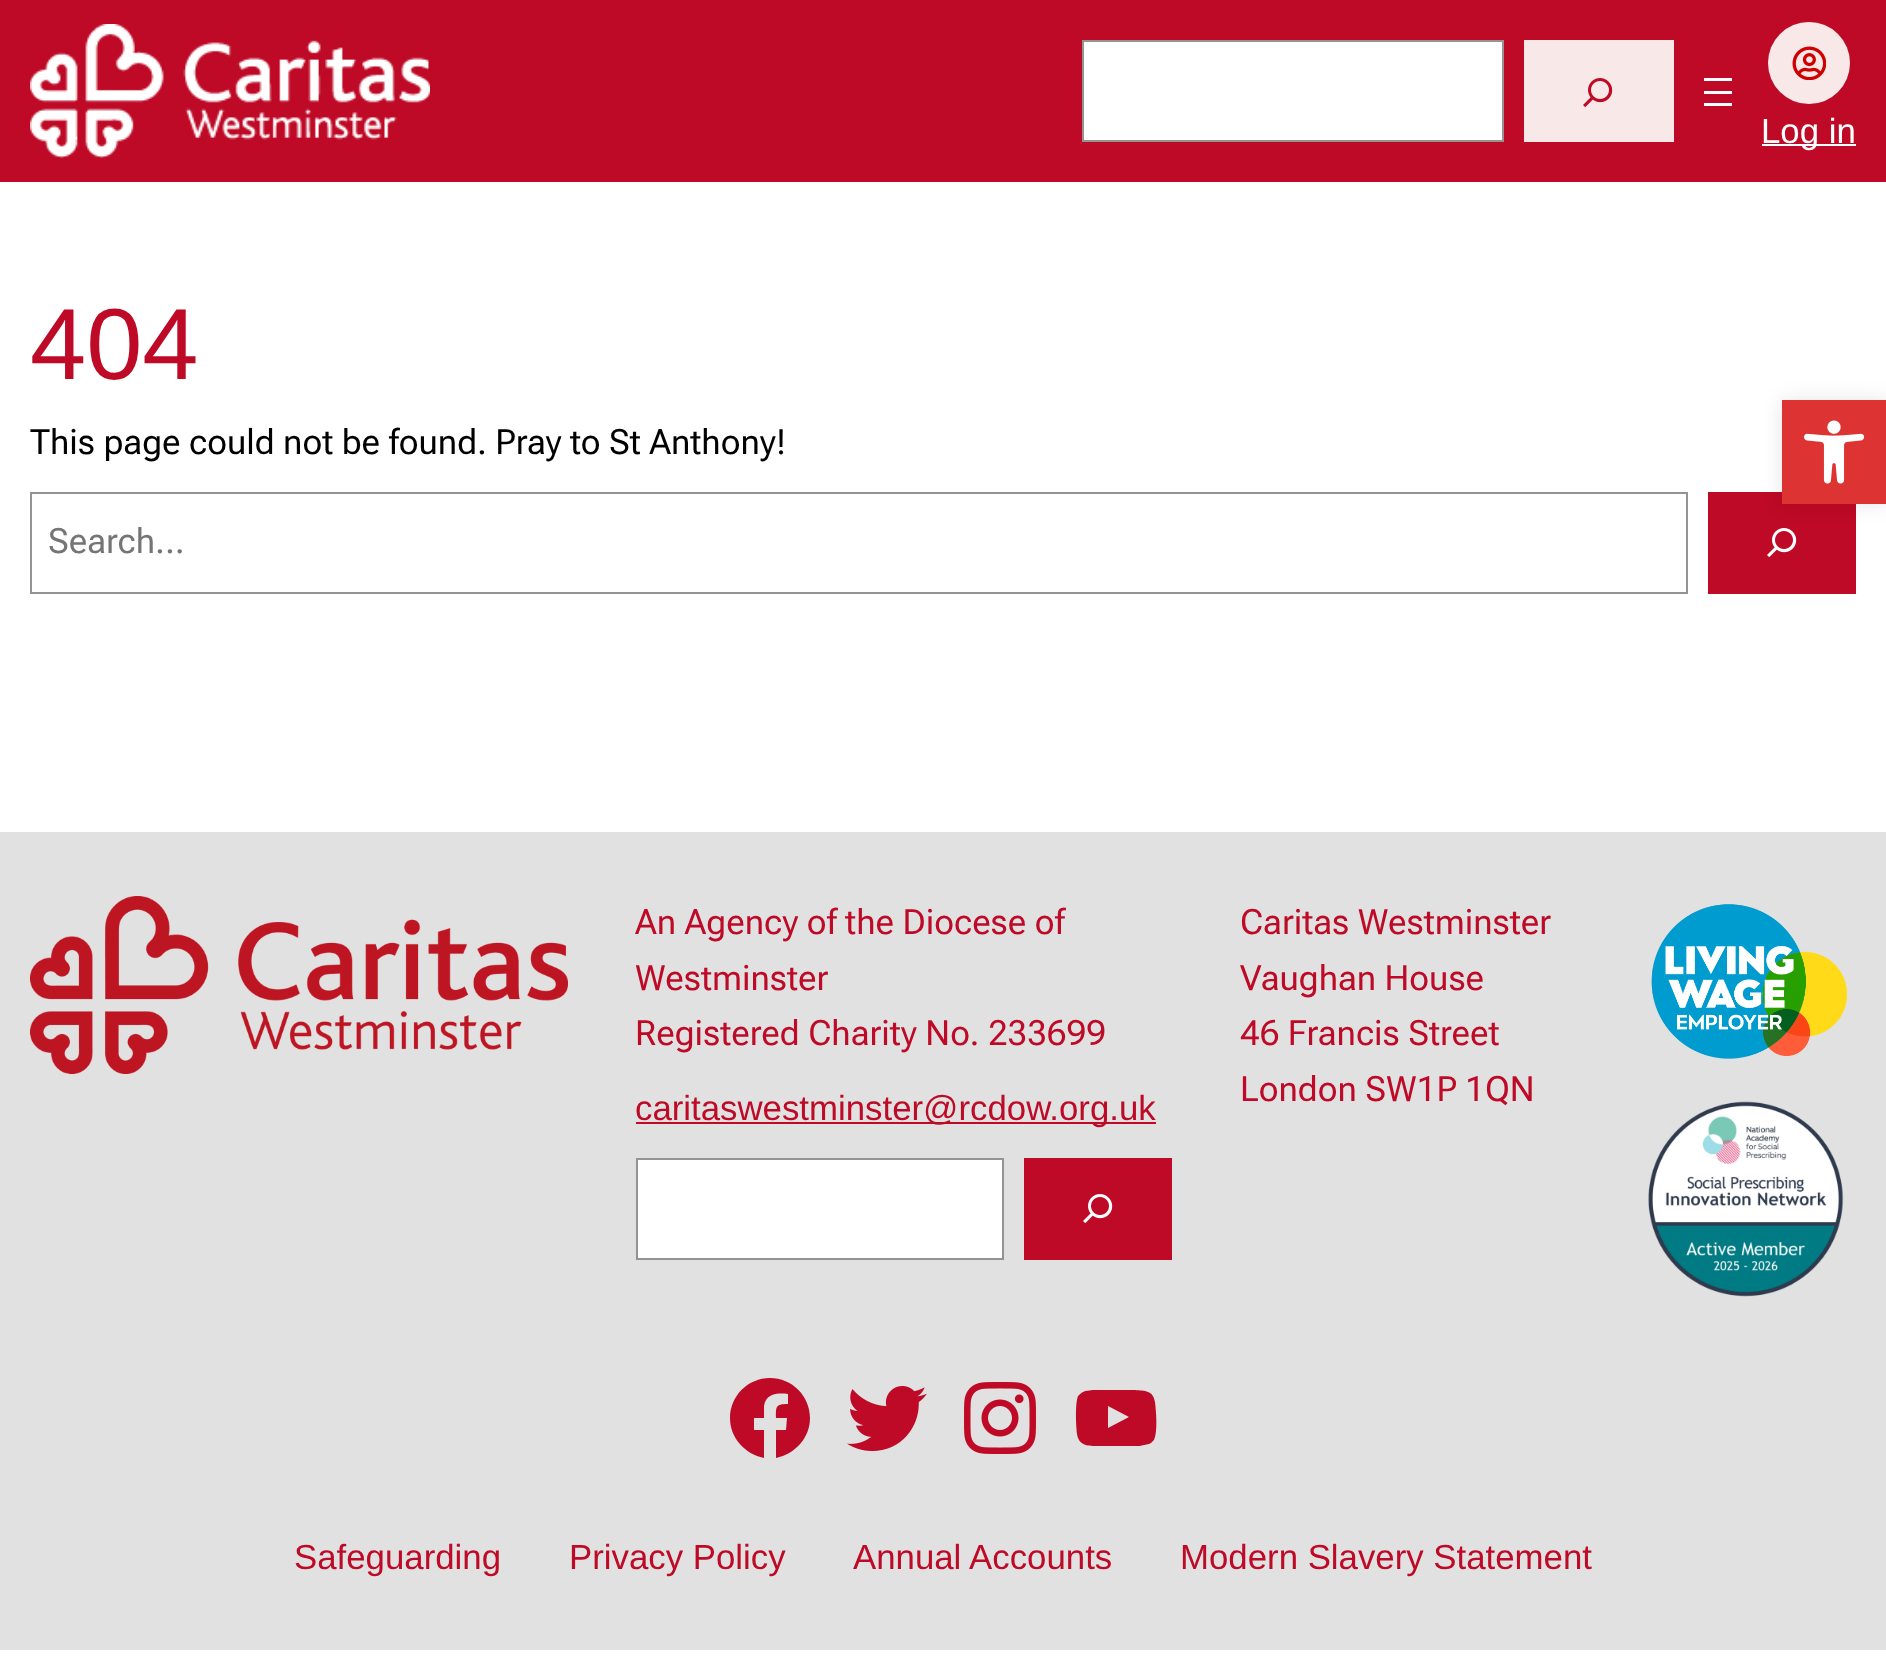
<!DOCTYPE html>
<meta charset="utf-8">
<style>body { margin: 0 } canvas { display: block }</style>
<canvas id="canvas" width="1886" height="1669"></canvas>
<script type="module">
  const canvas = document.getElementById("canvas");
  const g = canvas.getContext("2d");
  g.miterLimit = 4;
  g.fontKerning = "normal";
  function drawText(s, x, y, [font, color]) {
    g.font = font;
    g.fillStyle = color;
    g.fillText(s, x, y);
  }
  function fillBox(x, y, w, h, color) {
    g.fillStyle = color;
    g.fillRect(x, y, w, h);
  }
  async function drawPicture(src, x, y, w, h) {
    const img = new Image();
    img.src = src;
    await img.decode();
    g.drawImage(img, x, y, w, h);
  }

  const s1 = ["34.8px Liberation Sans", "#FFFFFF"];
  const s2 = ["101px Liberation Sans", "#BE0A26"];
  const s3 = ["34.8px Roboto Flex", "#000000"];
  const s4 = ["34.8px Roboto Flex", "#757575"];
  const s5 = ["34.8px Roboto Flex", "#BE0A26"];
  const s6 = ["34.8px Liberation Sans", "#BE0A26"];

  fillBox(0, 0, 1886, 1669, "#FFFFFF");
  fillBox(0, 0, 1886, 182, "#BE0A26");
  await drawPicture("pic1.png", 30, 24, 400, 134);
  g.fillStyle = "#FFFFFF";
  g.beginPath();
  g.rect(1083, 41, 420, 100);
  g.fill();
  g.strokeStyle = "#949494";
  g.lineWidth = 2;
  g.stroke();
  fillBox(1524, 40, 150, 102, "#F8E9E8");
  await drawPicture("pic2.png", 1583, 78, 30, 30);
  fillBox(1704, 78, 28, 3, "#FFFFFF");
  fillBox(1704, 91, 28, 3, "#FFFFFF");
  fillBox(1704, 103, 28, 3, "#FFFFFF");
  g.fillStyle = "#F8E9E8";
  g.beginPath();
  g.arc(1809, 63, 41, 0, Math.PI * 2);
  g.fill();
  await drawPicture("pic3.png", 1792, 46, 34, 34);
  fillBox(1762, 144, 94, 2, "#FFFFFF");
  drawText("Log in", 1761, 143, s1);
  drawText("404", 30, 379, s2);
  drawText("This page could not be found. Pray to St Anthony!", 30, 454, s3);
  g.strokeRect(31, 493, 1656, 100);
  drawText("Search...", 48, 553, s4);
  fillBox(1708, 492, 148, 102, "#BE0A26");
  await drawPicture("pic4.png", 1767, 528, 30, 30);
  fillBox(0, 832, 1886, 818, "#E1E1E1");
  await drawPicture("pic5.png", 30, 896, 538, 178);
  drawText("An Agency of the Diocese of", 635, 934, s5);
  drawText("Westminster", 635, 990, s5);
  drawText("Registered Charity No. 233699", 635, 1045, s5);
  fillBox(636, 1122, 520, 2, "#BE0A26");
  drawText("caritaswestminster@rcdow.org.uk", 635, 1120, s6);
  g.fillStyle = "#FFFFFF";
  g.beginPath();
  g.rect(637, 1159, 366, 100);
  g.fill();
  g.stroke();
  fillBox(1024, 1158, 148, 102, "#BE0A26");
  await drawPicture("pic4.png", 1083, 1194, 30, 30);
  drawText("Caritas Westminster", 1240, 934, s5);
  drawText("Vaughan House", 1240, 990, s5);
  drawText("46 Francis Street", 1240, 1045, s5);
  drawText("London SW1P 1QN", 1240, 1101, s5);
  await drawPicture("pic6.png", 1651, 904, 196, 155);
  await drawPicture("pic7.png", 1648, 1101, 196, 196);
  g.beginPath();
  g.moveTo(770, 1378);
  g.bezierCurveTo(748, 1378, 730, 1396, 730, 1418);
  g.bezierCurveTo(730, 1438, 745, 1454, 764, 1458);
  g.lineTo(764, 1430);
  g.lineTo(754, 1430);
  g.lineTo(754, 1418);
  g.lineTo(764, 1418);
  g.lineTo(764, 1406);
  g.bezierCurveTo(766, 1393, 778, 1393, 788, 1394);
  g.lineTo(788, 1404);
  g.bezierCurveTo(775, 1404, 776, 1407, 776, 1418);
  g.lineTo(787, 1418);
  g.lineTo(786, 1430);
  g.lineTo(776, 1430);
  g.lineTo(776, 1458);
  g.bezierCurveTo(795, 1454, 810, 1438, 810, 1418);
  g.bezierCurveTo(810, 1396, 792, 1378, 770, 1378);
  g.closePath();
  g.fill();
  await drawPicture("pic8.png", 847, 1386, 80, 65);
  await drawPicture("pic9.png", 964, 1382, 72, 72);
  g.beginPath();
  g.moveTo(1155, 1402);
  g.bezierCurveTo(1153, 1390, 1145, 1391, 1135, 1390);
  g.lineTo(1110, 1390);
  g.lineTo(1092, 1390);
  g.bezierCurveTo(1090, 1391, 1086, 1390, 1083, 1392);
  g.bezierCurveTo(1081, 1393, 1080, 1394, 1078, 1396);
  g.bezierCurveTo(1075, 1404, 1076, 1425, 1077, 1434);
  g.bezierCurveTo(1079, 1447, 1090, 1446, 1100, 1446);
  g.lineTo(1122, 1446);
  g.lineTo(1140, 1446);
  g.bezierCurveTo(1142, 1445, 1146, 1445, 1149, 1444);
  g.bezierCurveTo(1151, 1443, 1152, 1442, 1154, 1440);
  g.bezierCurveTo(1158, 1431, 1156, 1411, 1155, 1402);
  g.closePath();
  g.moveTo(1108, 1428);
  g.lineTo(1108, 1406);
  g.lineTo(1129, 1417);
  g.closePath();
  g.fill();
  drawText("Safeguarding", 294, 1569, s6);
  drawText("Privacy Policy", 569, 1569, s6);
  drawText("Annual Accounts", 853, 1569, s6);
  drawText("Modern Slavery Statement", 1180, 1569, s6);
  g.fillStyle = "rgba(0, 0, 0, 0.1)";
  g.filter = "blur(10px)";
  g.beginPath();
  g.rect(1782, 400, 104, 104);
  g.fill();
  g.filter = "none";
  fillBox(1782, 400, 104, 104, "#DD3333");
  await drawPicture("pic10.png", 1804, 420, 61, 64);
</script>
